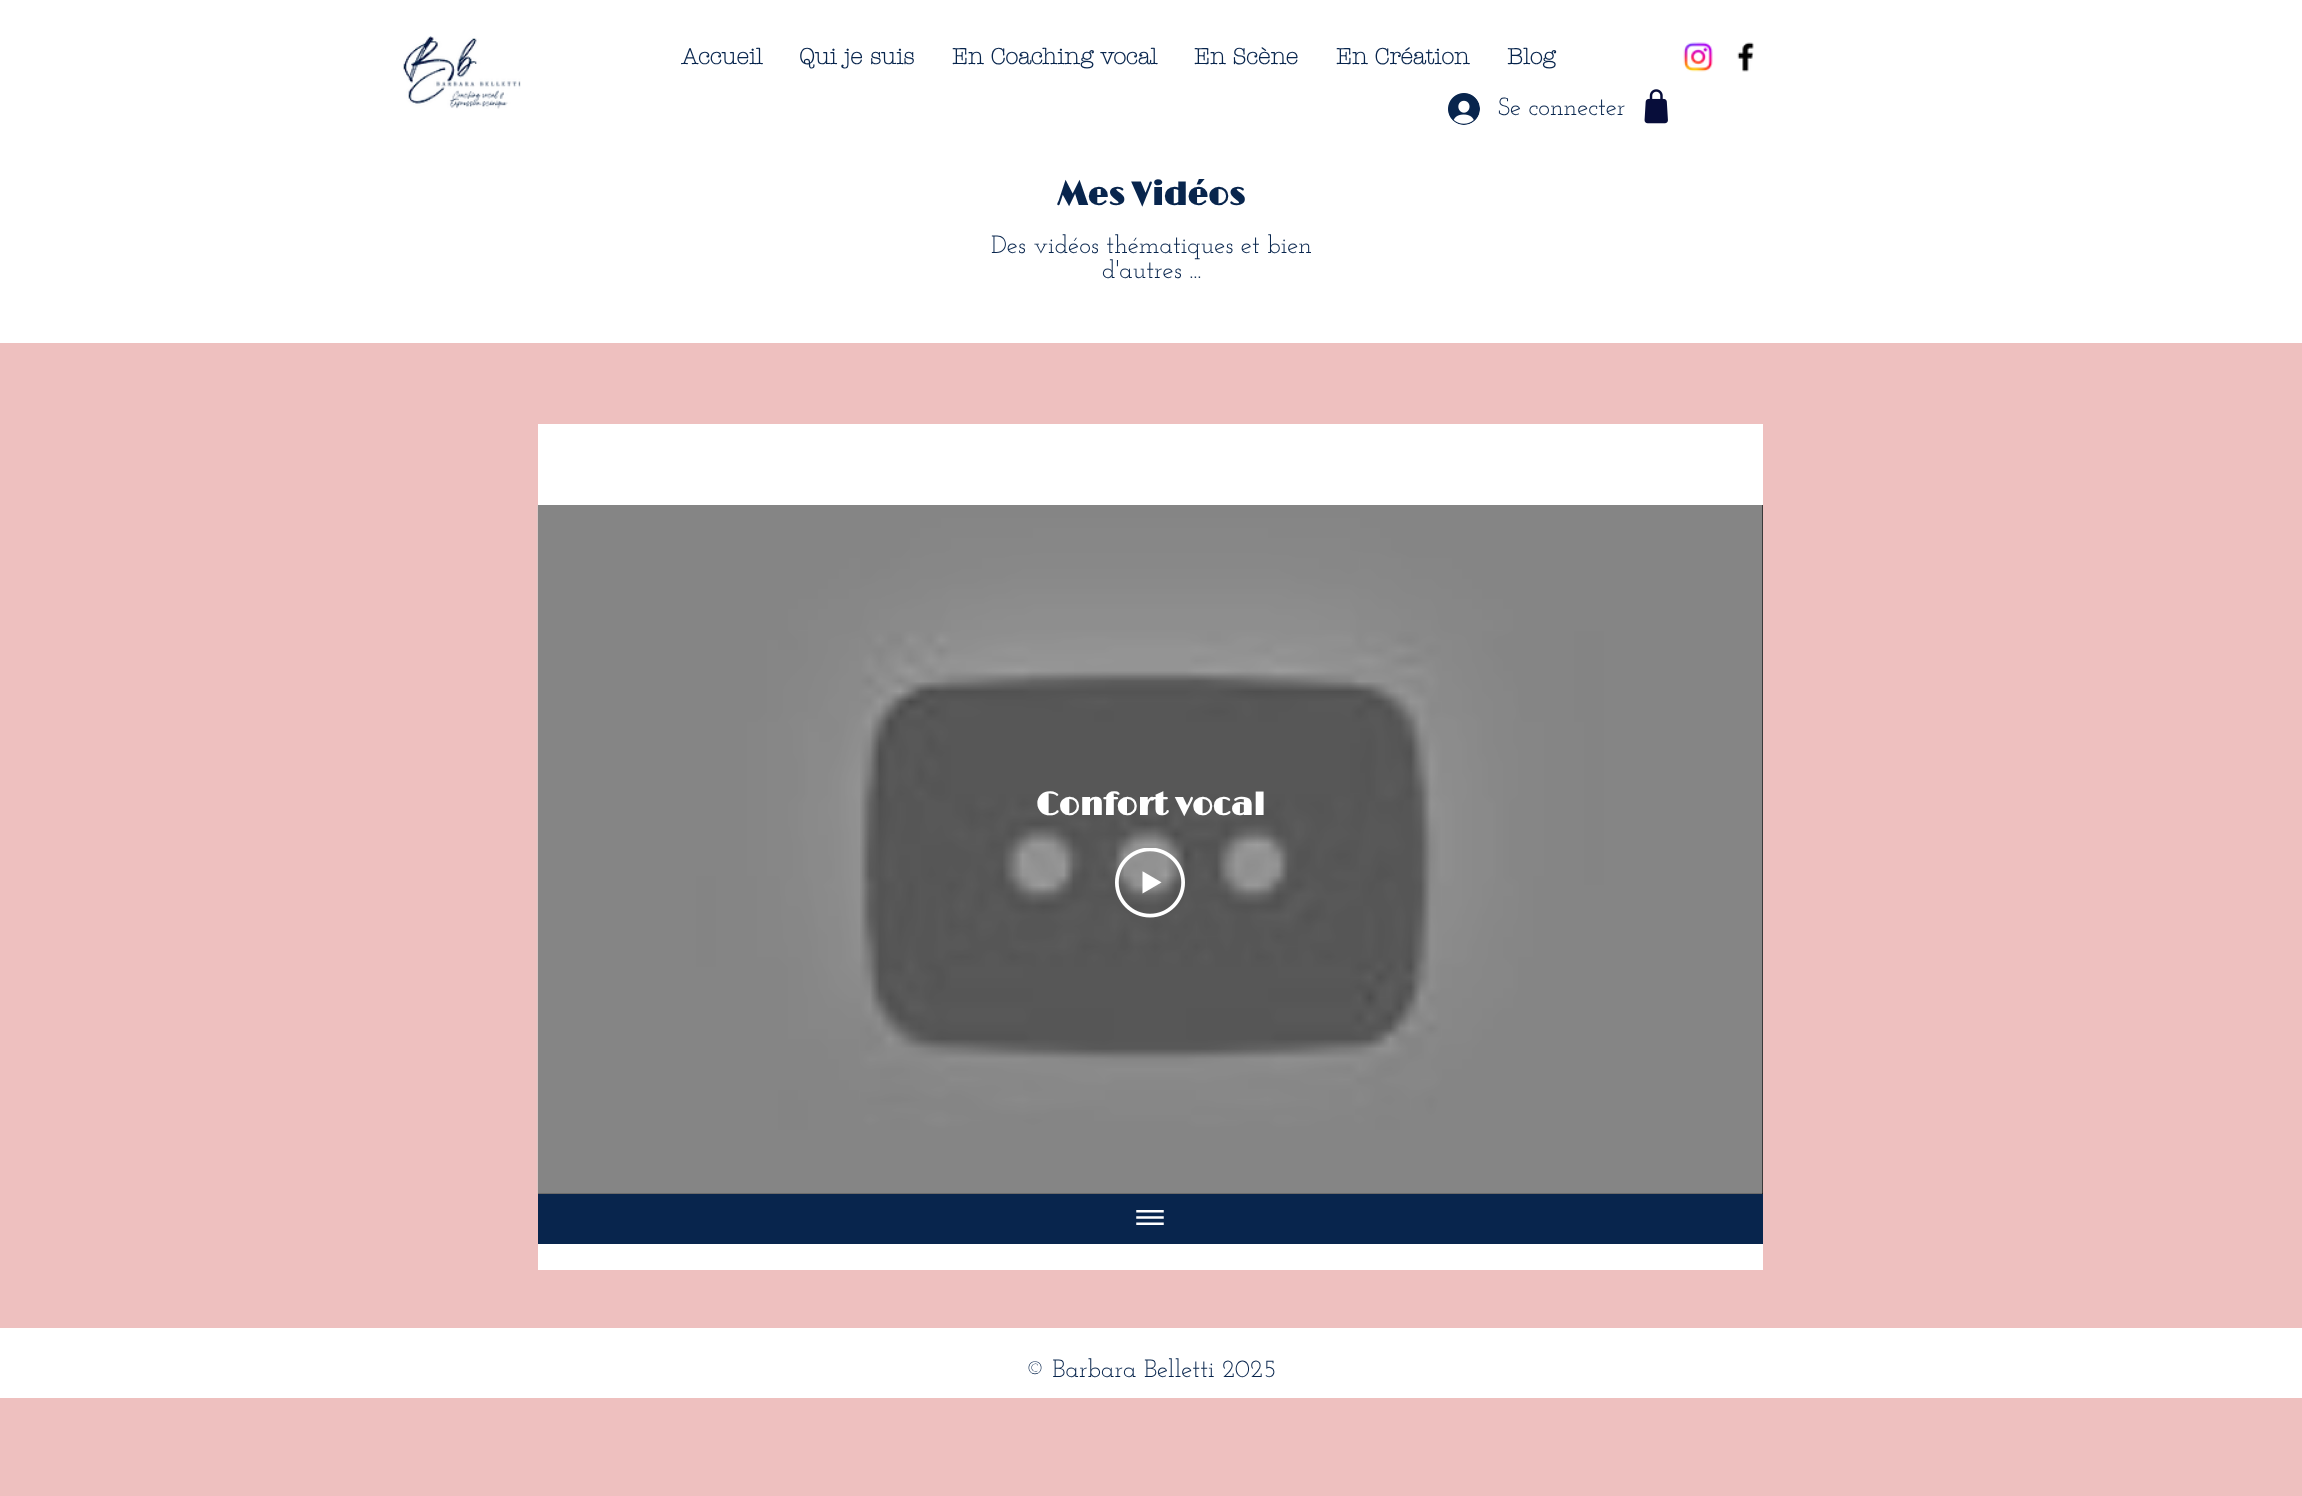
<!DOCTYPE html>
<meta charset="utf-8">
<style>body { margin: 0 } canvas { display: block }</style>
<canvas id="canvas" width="2302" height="1496"></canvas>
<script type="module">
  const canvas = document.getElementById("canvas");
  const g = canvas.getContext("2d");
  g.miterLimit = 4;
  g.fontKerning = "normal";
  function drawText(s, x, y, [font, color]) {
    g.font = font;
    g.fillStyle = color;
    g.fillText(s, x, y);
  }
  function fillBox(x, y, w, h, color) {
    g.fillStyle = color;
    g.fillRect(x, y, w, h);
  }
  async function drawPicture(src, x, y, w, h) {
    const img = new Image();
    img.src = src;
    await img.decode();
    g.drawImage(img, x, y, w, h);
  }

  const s1 = ["bold 22.5px 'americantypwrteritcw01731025'", "#08254D"];
  const s2 = ["25px Josefin Slab", "#08254D"];
  const s3 = ["bold 32.5px Limelight", "#08254D"];
  const s4 = ["bold 32.5px Limelight", "#FFFFFF"];

  fillBox(0, 0, 2302, 1496, "#EEC0BF");
  fillBox(0, 0, 2302, 343, "#FFFFFF");
  await drawPicture("pic1.png", 403, 36, 118, 73);
  drawText("Accueil", 681, 64, s1);
  drawText("Qui je suis", 799, 64, s1);
  drawText("En Coaching vocal", 952, 64, s1);
  drawText("En Scène", 1194, 64, s1);
  drawText("En Création", 1336, 64, s1);
  drawText("Blog", 1507, 64, s1);
  await drawPicture("pic2.png", 1683, 42, 30, 30);
  await drawPicture("pic3.png", 1737, 42, 17, 30);
  await drawPicture("pic4.png", 1448, 93, 32, 32);
  drawText("Se connecter", 1498, 115, s2);
  await drawPicture("pic5.png", 1644, 89, 24, 35);
  drawText("Mes Vidéos", 1057, 205, s3);
  drawText("Des vidéos thématiques et bien", 991, 253, s2);
  drawText("d'autres ...", 1102, 278, s2);
  fillBox(538, 424, 1225, 846, "#FFFFFF");
  fillBox(538, 505, 1225, 689, "#000000");
  await drawPicture("pic6.png", 537, 505, 1226, 689);
  await drawPicture("pic7.png", 537, 505, 1226, 689);
  drawText("Confort vocal", 1036, 815, s4);
  await drawPicture("pic8.png", 1115, 848, 70, 70);
  fillBox(538, 1194, 1225, 50, "#08254D");
  await drawPicture("pic9.png", 1136, 1210, 28, 15);
  fillBox(0, 1328, 2302, 70, "#FFFFFF");
  drawText("© Barbara Belletti 2025", 1025, 1377, s2);
</script>
